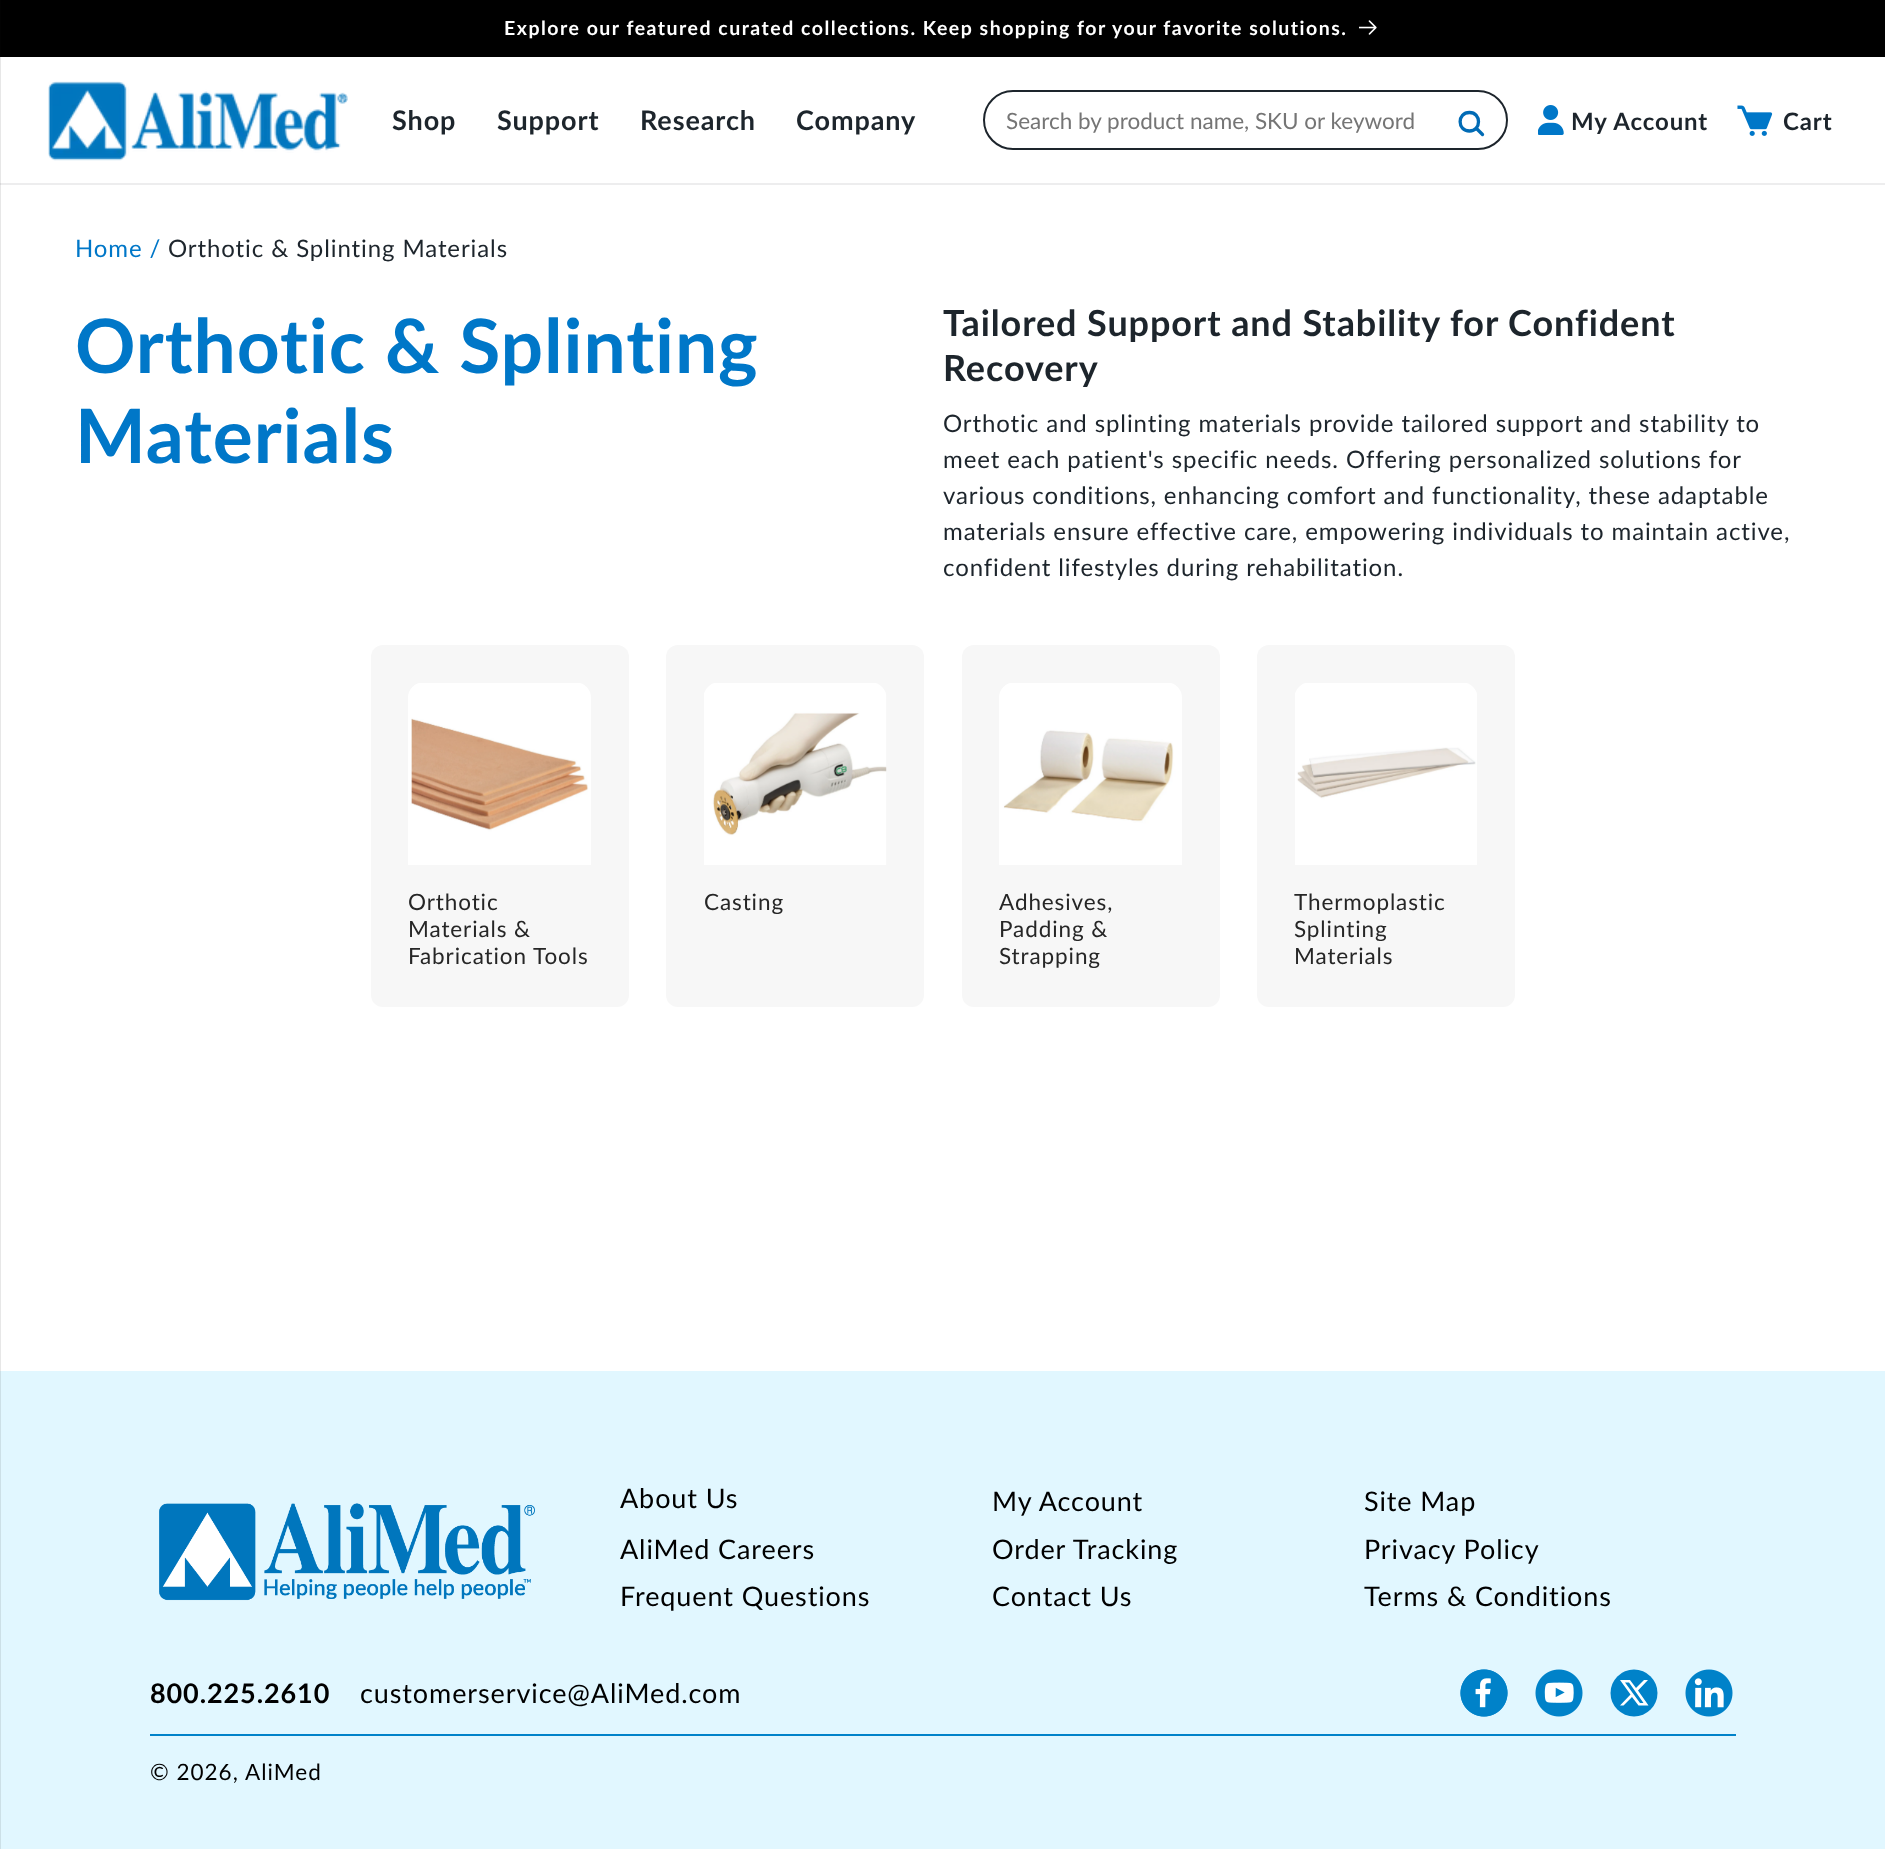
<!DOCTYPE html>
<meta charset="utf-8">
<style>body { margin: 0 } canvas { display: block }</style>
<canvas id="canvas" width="1885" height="1849"></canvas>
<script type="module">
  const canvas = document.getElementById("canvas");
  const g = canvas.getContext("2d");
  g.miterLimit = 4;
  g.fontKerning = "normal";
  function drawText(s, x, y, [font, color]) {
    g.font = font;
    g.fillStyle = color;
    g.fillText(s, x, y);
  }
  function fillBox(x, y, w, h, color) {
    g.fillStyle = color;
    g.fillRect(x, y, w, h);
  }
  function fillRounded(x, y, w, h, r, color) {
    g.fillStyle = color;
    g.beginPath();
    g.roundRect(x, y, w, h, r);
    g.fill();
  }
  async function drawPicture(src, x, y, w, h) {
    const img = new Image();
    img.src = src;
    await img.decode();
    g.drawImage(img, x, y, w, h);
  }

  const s1 = ["bold 19.5px Lato", "#FFFFFF"];
  const s2 = ["bold 27px Lato", "#1D252C"];
  const s3 = ["22.5px Lato", "#757575"];
  const s4 = ["bold 24px Lato", "#1D252C"];
  const s5 = ["24px Lato", "#0077C8"];
  const s6 = ["24px Lato", "#1D252C"];
  const s7 = ["bold 75px Lato", "#0077C8"];
  const s8 = ["bold 36px Lato", "#1D252C"];
  const s9 = ["22.5px Lato", "#262626"];
  const s10 = ["27px Lato", "#000000"];
  const s11 = ["bold 27px Lato", "#000000"];
  const s12 = ["22.5px Lato", "#000000"];

  fillBox(0, 0, 1885, 1849, "#FFFFFF");
  fillBox(0, 57, 1, 1314, "#E7E7E7");
  fillBox(1, 0, 1884, 57, "#000000");
  fillBox(0, 0, 1, 57, "#020202");
  g.letterSpacing = "1.5px";
  drawText("Explore our featured curated collections. Keep shopping for your favorite solutions.", 504, 35, s1);
  await drawPicture("pic1.png", 1359, 20, 18, 15);
  fillBox(0, 183, 1885, 2, "#EDEDEE");
  fillBox(0, 183, 1, 2, "#D7D7D8");
  await drawPicture("pic2.png", 48, 81, 300, 80);
  g.letterSpacing = "0.9px";
  drawText("Shop", 392, 130, s2);
  drawText("Support", 497, 130, s2);
  drawText("Research", 640, 130, s2);
  drawText("Company", 796, 130, s2);
  g.beginPath();
  g.roundRect(984, 91, 523, 58, 29);
  g.strokeStyle = "#1D252C";
  g.lineWidth = 2;
  g.stroke();
  g.letterSpacing = "0px";
  drawText("Search by product name, SKU or keyword", 1006, 129, s3);
  g.beginPath();
  g.moveTo(1477, 129);
  g.lineTo(1482.5, 134.5);
  g.moveTo(1469.5, 131);
  g.bezierCurveTo(1481.5, 131, 1481.5, 112.5, 1469.5, 112.5);
  g.bezierCurveTo(1457, 112.5, 1457, 131, 1469.5, 131);
  g.closePath();
  g.strokeStyle = "#016BB5";
  g.lineWidth = 3.3;
  g.lineCap = "round";
  g.lineJoin = "round";
  g.stroke();
  await drawPicture("pic3.png", 1538, 105, 26, 30);
  g.letterSpacing = "0.9px";
  drawText("My Account", 1571, 130, s4);
  await drawPicture("pic4.png", 1737, 105, 36, 31);
  drawText("Cart", 1783, 130, s4);
  drawText("Home /", 75, 257, s5);
  drawText("Orthotic & Splinting Materials", 168, 257, s6);
  drawText("Orthotic & Splinting", 75, 373, s7);
  drawText("Materials", 75, 463, s7);
  drawText("Tailored Support and Stability for Confident", 943, 336, s8);
  drawText("Recovery", 943, 381, s8);
  drawText("Orthotic and splinting materials provide tailored support and stability to", 943, 432, s6);
  drawText("meet each patient's specific needs. Offering personalized solutions for", 943, 468, s6);
  drawText("various conditions, enhancing comfort and functionality, these adaptable", 943, 504, s6);
  drawText("materials ensure effective care, empowering individuals to maintain active,", 943, 540, s6);
  drawText("confident lifestyles during rehabilitation.", 943, 576, s6);
  fillRounded(371, 645, 258, 362, 12, "#F7F7F7");
  await drawPicture("pic5.png", 408, 683, 183, 182);
  drawText("Orthotic", 408, 910, s9);
  drawText("Materials &", 408, 937, s9);
  drawText("Fabrication Tools", 408, 964, s9);
  fillRounded(666, 645, 258, 362, 12, "#F7F7F7");
  await drawPicture("pic6.png", 704, 683, 183, 182);
  drawText("Casting", 704, 910, s9);
  fillRounded(962, 645, 258, 362, 12, "#F7F7F7");
  await drawPicture("pic7.png", 999, 683, 183, 182);
  drawText("Adhesives,", 999, 910, s9);
  drawText("Padding &", 999, 937, s9);
  drawText("Strapping", 999, 964, s9);
  fillRounded(1257, 645, 258, 362, 12, "#F7F7F7");
  await drawPicture("pic8.png", 1295, 683, 182, 182);
  drawText("Thermoplastic", 1294, 910, s9);
  drawText("Splinting", 1294, 937, s9);
  drawText("Materials", 1294, 964, s9);
  fillBox(1, 1371, 1884, 478, "#E1F7FF");
  fillBox(0, 1371, 1, 478, "#CCE0E7");
  await drawPicture("pic9.png", 159, 1503, 376, 98);
  drawText("About Us", 620, 1508, s10);
  drawText("My Account", 992, 1511, s10);
  drawText("Site Map", 1364, 1511, s10);
  drawText("AliMed Careers", 620, 1559, s10);
  drawText("Order Tracking", 992, 1559, s10);
  drawText("Privacy Policy", 1364, 1559, s10);
  drawText("Frequent Questions", 620, 1606, s10);
  drawText("Contact Us", 992, 1606, s10);
  drawText("Terms & Conditions", 1364, 1606, s10);
  fillBox(150, 1734, 1586, 2, "#0082C9");
  drawText("800.225.2610", 150, 1703, s11);
  drawText("customerservice@AliMed.com", 360, 1703, s10);
  await drawPicture("pic10.png", 1460, 1669, 48, 48);
  await drawPicture("pic11.png", 1535, 1669, 48, 48);
  g.fillStyle = "#0082C9";
  g.beginPath();
  g.arc(1634, 1693, 23.5, 0, Math.PI * 2);
  g.fill();
  g.fillStyle = "#FFFFFF";
  g.beginPath();
  g.moveTo(1638, 1690.5);
  g.lineTo(1648, 1680);
  g.lineTo(1644, 1680);
  g.lineTo(1636, 1688);
  g.lineTo(1630, 1680);
  g.lineTo(1620, 1680);
  g.lineTo(1630.5, 1694.5);
  g.lineTo(1620, 1705.5);
  g.lineTo(1623.5, 1705.5);
  g.lineTo(1632, 1697);
  g.lineTo(1638.5, 1705.5);
  g.lineTo(1648.5, 1705.5);
  g.closePath();
  g.moveTo(1625, 1682.5);
  g.lineTo(1629, 1682.5);
  g.lineTo(1643.5, 1703);
  g.lineTo(1640, 1703);
  g.closePath();
  g.fill();
  await drawPicture("pic12.png", 1685, 1669, 48, 48);
  g.letterSpacing = "1px";
  drawText("© 2026,", 150, 1780, s12);
  drawText("AliMed", 245, 1780, s12);
</script>
